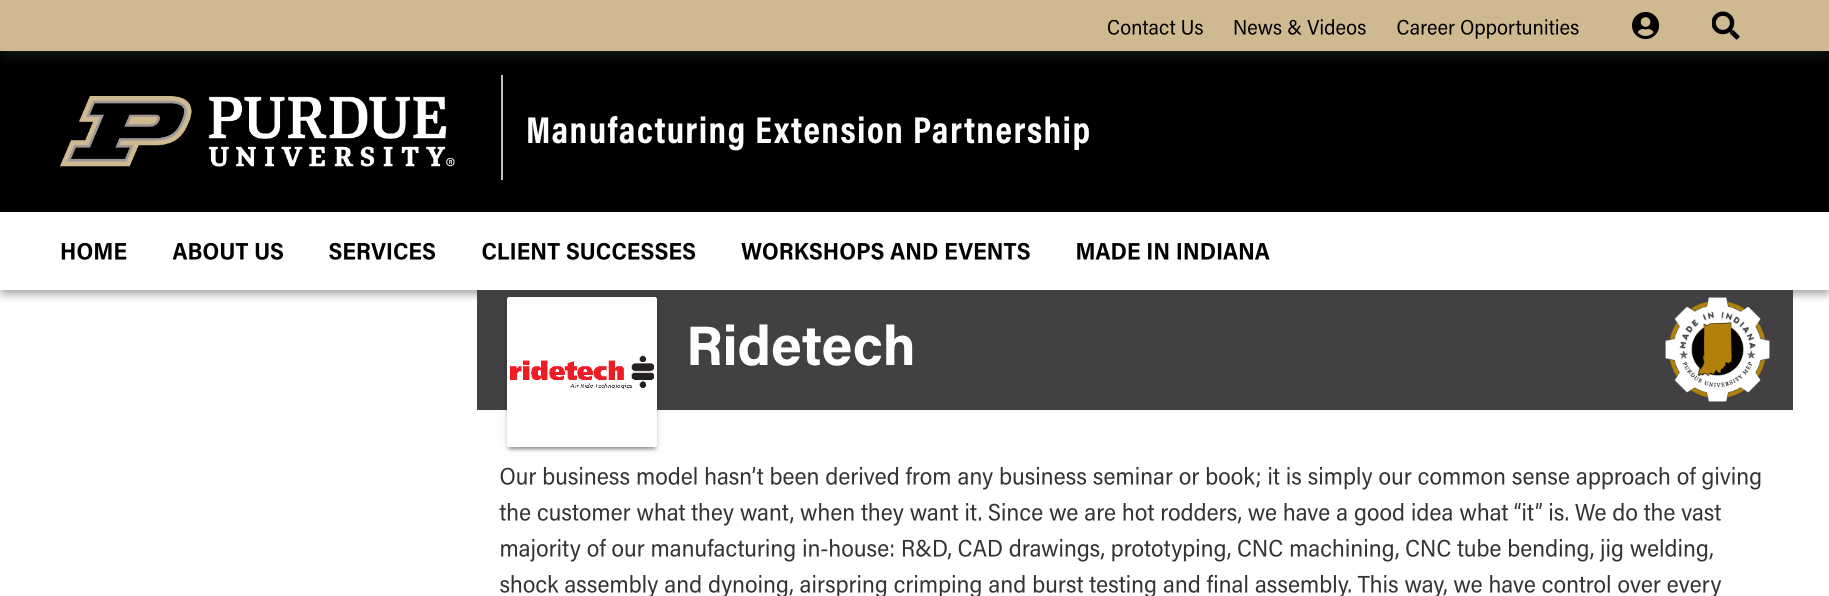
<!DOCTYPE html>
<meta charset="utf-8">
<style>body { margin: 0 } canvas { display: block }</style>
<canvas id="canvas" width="1829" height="596"></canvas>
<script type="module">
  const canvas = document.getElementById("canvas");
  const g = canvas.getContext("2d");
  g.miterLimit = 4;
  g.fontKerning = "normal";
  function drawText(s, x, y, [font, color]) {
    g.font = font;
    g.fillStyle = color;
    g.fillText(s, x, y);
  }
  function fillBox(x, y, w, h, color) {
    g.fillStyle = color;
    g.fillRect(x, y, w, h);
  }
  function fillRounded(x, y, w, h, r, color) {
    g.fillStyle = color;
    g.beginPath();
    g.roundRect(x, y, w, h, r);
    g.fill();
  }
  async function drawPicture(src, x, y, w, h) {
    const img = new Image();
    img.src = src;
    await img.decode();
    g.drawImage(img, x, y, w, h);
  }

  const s1 = ["bold 37.5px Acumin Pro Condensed", "#FFFFFF"];
  const s2 = ["bold 55.5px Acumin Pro", "#FFFFFF"];

  fillBox(0, 0, 1829, 596, "#FFFFFF");
  fillBox(0, 51, 1829, 161, "#000000");
  g.fillStyle = "#1E1E1E";
  g.filter = "blur(7.5px)";
  g.beginPath();
  g.rect(0, 3, 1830, 51);
  g.fill();
  g.filter = "none";
  fillBox(0, 0, 1829, 51, "#CFB991");
  await drawPicture("pic1.png", 1108, 19, 95, 16);
  await drawPicture("pic2.png", 1234, 19, 132, 16);
  await drawPicture("pic3.png", 1397, 19, 182, 20);
  await drawPicture("pic4.png", 1632, 11, 28, 29);
  await drawPicture("pic5.png", 1712, 11, 28, 29);
  await drawPicture("pic6.png", 60, 96, 395, 71);
  fillBox(501, 75, 2, 105, "#C4BFC0");
  g.letterSpacing = "1.5px";
  drawText("Manufacturing Extension Partnership", 526, 143, s1);
  g.fillStyle = "rgba(0, 0, 0, 0.23)";
  g.filter = "blur(4.5px)";
  g.beginPath();
  g.rect(0, 216, 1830, 78);
  g.fill();
  g.filter = "none";
  g.fillStyle = "rgba(0, 0, 0, 0.16)";
  g.filter = "blur(4.5px)";
  g.beginPath();
  g.rect(0, 216, 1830, 78);
  g.fill();
  g.filter = "none";
  fillBox(0, 212, 1829, 78, "#FFFFFF");
  await drawPicture("pic7.png", 61, 242, 66, 18);
  await drawPicture("pic8.png", 172, 242, 111, 18);
  await drawPicture("pic9.png", 329, 242, 107, 18);
  await drawPicture("pic10.png", 482, 242, 214, 18);
  await drawPicture("pic11.png", 741, 242, 289, 18);
  await drawPicture("pic12.png", 1077, 243, 193, 17);
  fillBox(477, 290, 1316, 120, "#424043");
  g.fillStyle = "rgba(0, 0, 0, 0.12)";
  g.filter = "blur(4px)";
  g.beginPath();
  g.roundRect(507, 299, 150, 150, 3);
  g.fill();
  g.filter = "none";
  g.fillStyle = "rgba(0, 0, 0, 0.2)";
  g.filter = "blur(1px)";
  g.beginPath();
  g.rect(510, 305, 144, 144);
  g.fill();
  g.filter = "none";
  g.fillStyle = "rgba(0, 0, 0, 0.14)";
  g.filter = "blur(1.5px)";
  g.beginPath();
  g.roundRect(507, 300, 150, 150, 3);
  g.fill();
  g.filter = "none";
  fillRounded(507, 297, 150, 150, 3, "#FFFFFF");
  await drawPicture("pic13.png", 510, 355, 144, 34);
  g.beginPath();
  g.roundRect(508.5, 298.5, 147, 147, 1.5);
  g.strokeStyle = "#FFFFFF";
  g.lineWidth = 3;
  g.stroke();
  g.letterSpacing = "0px";
  drawText("Ridetech", 686, 365, s2);
  await drawPicture("pic14.png", 1665, 297, 105, 105);
  await drawPicture("pic15.png", 500, 466, 1261, 24);
  await drawPicture("pic16.png", 499, 502, 1222, 24);
  await drawPicture("pic17.png", 501, 538, 1212, 24);
  await drawPicture("pic18.png", 500, 574, 1222, 22);
</script>
